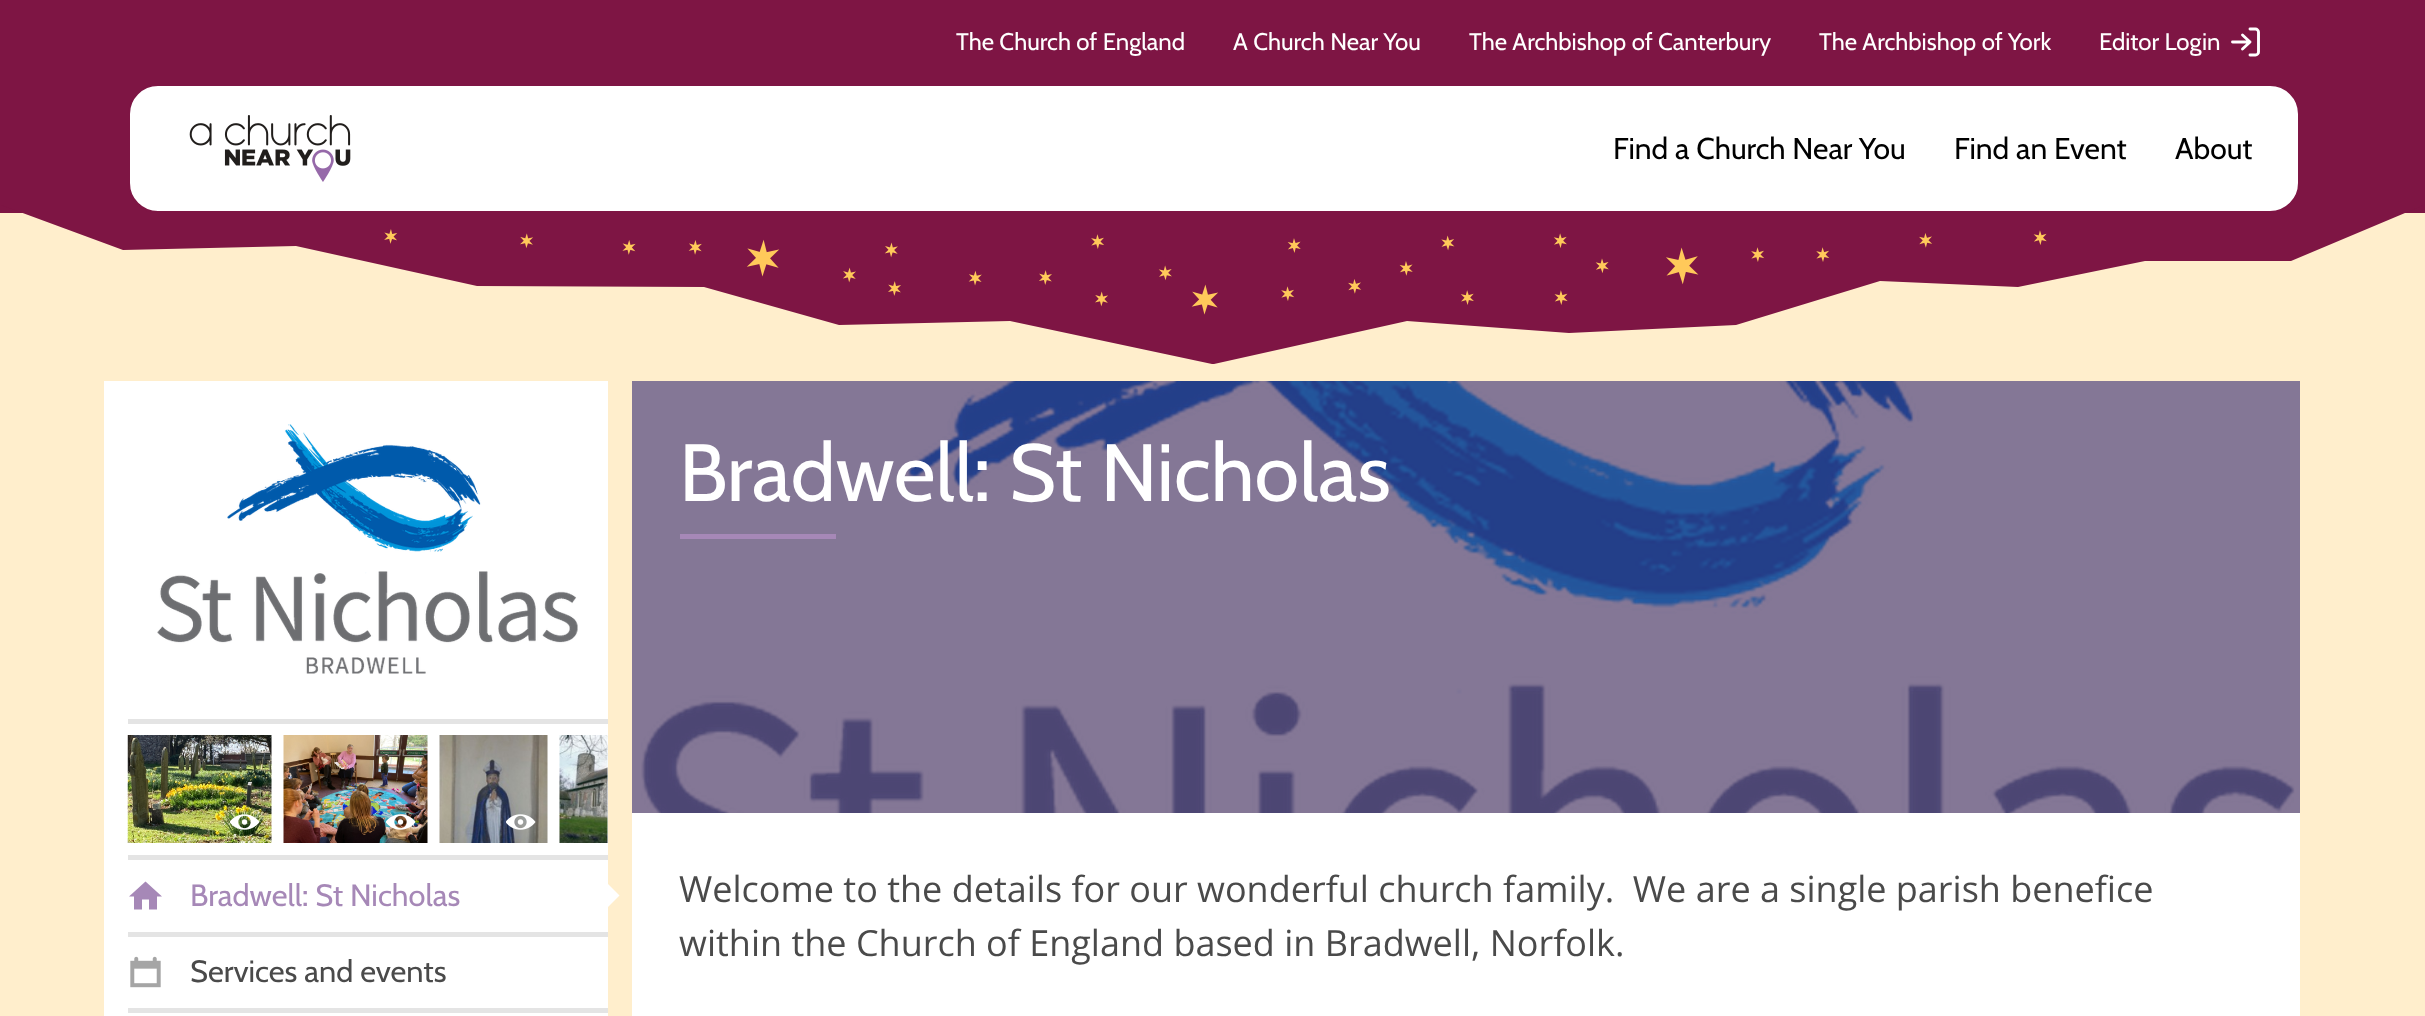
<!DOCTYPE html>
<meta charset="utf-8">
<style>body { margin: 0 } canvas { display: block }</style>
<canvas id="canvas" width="2425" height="1016"></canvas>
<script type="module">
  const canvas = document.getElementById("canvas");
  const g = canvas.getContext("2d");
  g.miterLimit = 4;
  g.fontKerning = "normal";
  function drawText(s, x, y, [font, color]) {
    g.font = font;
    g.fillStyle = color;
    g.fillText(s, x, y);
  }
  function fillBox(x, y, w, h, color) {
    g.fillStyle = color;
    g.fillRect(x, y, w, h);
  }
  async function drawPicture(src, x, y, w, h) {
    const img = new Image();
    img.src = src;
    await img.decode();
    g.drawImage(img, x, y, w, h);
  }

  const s1 = ["24px Cabin", "#FFFFFF"];
  const s2 = ["30px Cabin", "#000000"];
  const s3 = ["30.75px Cabin", "#A688B7"];
  const s4 = ["30.75px Cabin", "#4A4A4A"];
  const s5 = ["81px Cabin", "#FFFFFF"];
  const s6 = ["36px Open Sans", "#4A4A4A"];

  fillBox(0, 0, 2425, 1016, "#FFEECC");
  fillBox(632, 381, 1668, 432, "#847796");
  fillBox(0, 0, 2425, 213, "#7E1544");
  drawText("The Church of England", 956, 50, s1);
  drawText("A Church Near You", 1233, 50, s1);
  drawText("The Archbishop of Canterbury", 1469, 50, s1);
  drawText("The Archbishop of York", 1819, 50, s1);
  drawText("Editor Login", 2099, 50, s1);
  g.beginPath();
  g.moveTo(2250, 29);
  g.lineTo(2255.5, 29);
  g.bezierCurveTo(2257, 29, 2258.5, 30.5, 2258.5, 32);
  g.lineTo(2258.5, 52);
  g.bezierCurveTo(2258.5, 53.5, 2257, 55, 2255.5, 55);
  g.lineTo(2250, 55);
  g.moveTo(2242.5, 49);
  g.lineTo(2250, 42);
  g.lineTo(2242.5, 35);
  g.moveTo(2250, 42);
  g.lineTo(2232.5, 42);
  g.strokeStyle = "#FFFFFF";
  g.lineWidth = 2.9;
  g.lineCap = "round";
  g.lineJoin = "round";
  g.stroke();
  g.fillStyle = "#7E1544";
  g.beginPath();
  g.moveTo(296, 246);
  g.lineTo(123, 250);
  g.lineTo(1, 205);
  g.lineTo(2424, 205);
  g.lineTo(2291, 261);
  g.lineTo(2145, 261);
  g.lineTo(2018, 287);
  g.lineTo(1880, 281);
  g.lineTo(1736, 325);
  g.lineTo(1569, 333);
  g.lineTo(1407, 321);
  g.lineTo(1214, 364);
  g.lineTo(1212, 364);
  g.lineTo(1010, 321);
  g.lineTo(839, 325);
  g.lineTo(704, 287);
  g.lineTo(477, 286);
  g.closePath();
  g.fill();
  g.fillStyle = "#FFFFFF";
  g.beginPath();
  g.roundRect(129, 85, 2170, 127, 29);
  g.fill();
  g.strokeStyle = "#7E1544";
  g.lineWidth = 2;
  g.lineJoin = "miter";
  g.stroke();
  await drawPicture("pic1.png", 189, 115, 162, 67);
  drawText("Find a Church Near You", 1613, 159, s2);
  drawText("Find an Event", 1954, 159, s2);
  drawText("About", 2175, 159, s2);
  await drawPicture("pic2.png", 384, 229, 1663, 86);
  fillBox(104, 381, 504, 635, "#FFFFFF");
  await drawPicture("pic3.png", 157, 424, 421, 250);
  fillBox(128, 719, 480, 5, "#E4E4E4");
  fillBox(128, 855, 480, 5, "#E4E4E4");
  await drawPicture("pic4.png", 127, 735, 145, 108);
  await drawPicture("pic5.png", 230, 814, 30, 16);
  await drawPicture("pic6.png", 283, 735, 145, 108);
  await drawPicture("pic7.png", 386, 814, 30, 16);
  await drawPicture("pic8.png", 439, 735, 109, 108);
  await drawPicture("pic9.png", 506, 814, 30, 16);
  await drawPicture("pic10.png", 559, 735, 49, 108);
  g.fillStyle = "#A688B7";
  g.beginPath();
  g.moveTo(142, 909.5);
  g.lineTo(134, 909.5);
  g.lineTo(134, 896.5);
  g.lineTo(129, 896.5);
  g.lineTo(145.5, 881.5);
  g.lineTo(162, 896.5);
  g.lineTo(157, 896.5);
  g.lineTo(157, 909.5);
  g.lineTo(149, 909.5);
  g.lineTo(149, 899.5);
  g.lineTo(142, 899.5);
  g.closePath();
  g.fill();
  drawText("Bradwell: St Nicholas", 190, 906, s3);
  g.fillStyle = "#FFFFFF";
  g.beginPath();
  g.moveTo(607.5, 907.5);
  g.lineTo(607.5, 883.5);
  g.lineTo(619.5, 895.5);
  g.closePath();
  g.fill();
  fillBox(128, 932, 480, 5, "#E4E4E4");
  await drawPicture("pic11.png", 130, 956, 31, 32);
  drawText("Services and events", 190, 982, s4);
  fillBox(128, 1008, 480, 5, "#E4E4E4");
  await drawPicture("pic12.png", 641, 381, 1654, 432);
  drawText("Bradwell: St Nicholas", 679, 501, s5);
  fillBox(680, 534, 156, 5, "#A688B7");
  fillBox(632, 813, 1668, 203, "#FFFFFF");
  drawText("Welcome to the details for our wonderful church family.  We are a single parish benefice", 679, 902, s6);
  drawText("within the Church of England based in Bradwell, Norfolk.", 679, 956, s6);
</script>
